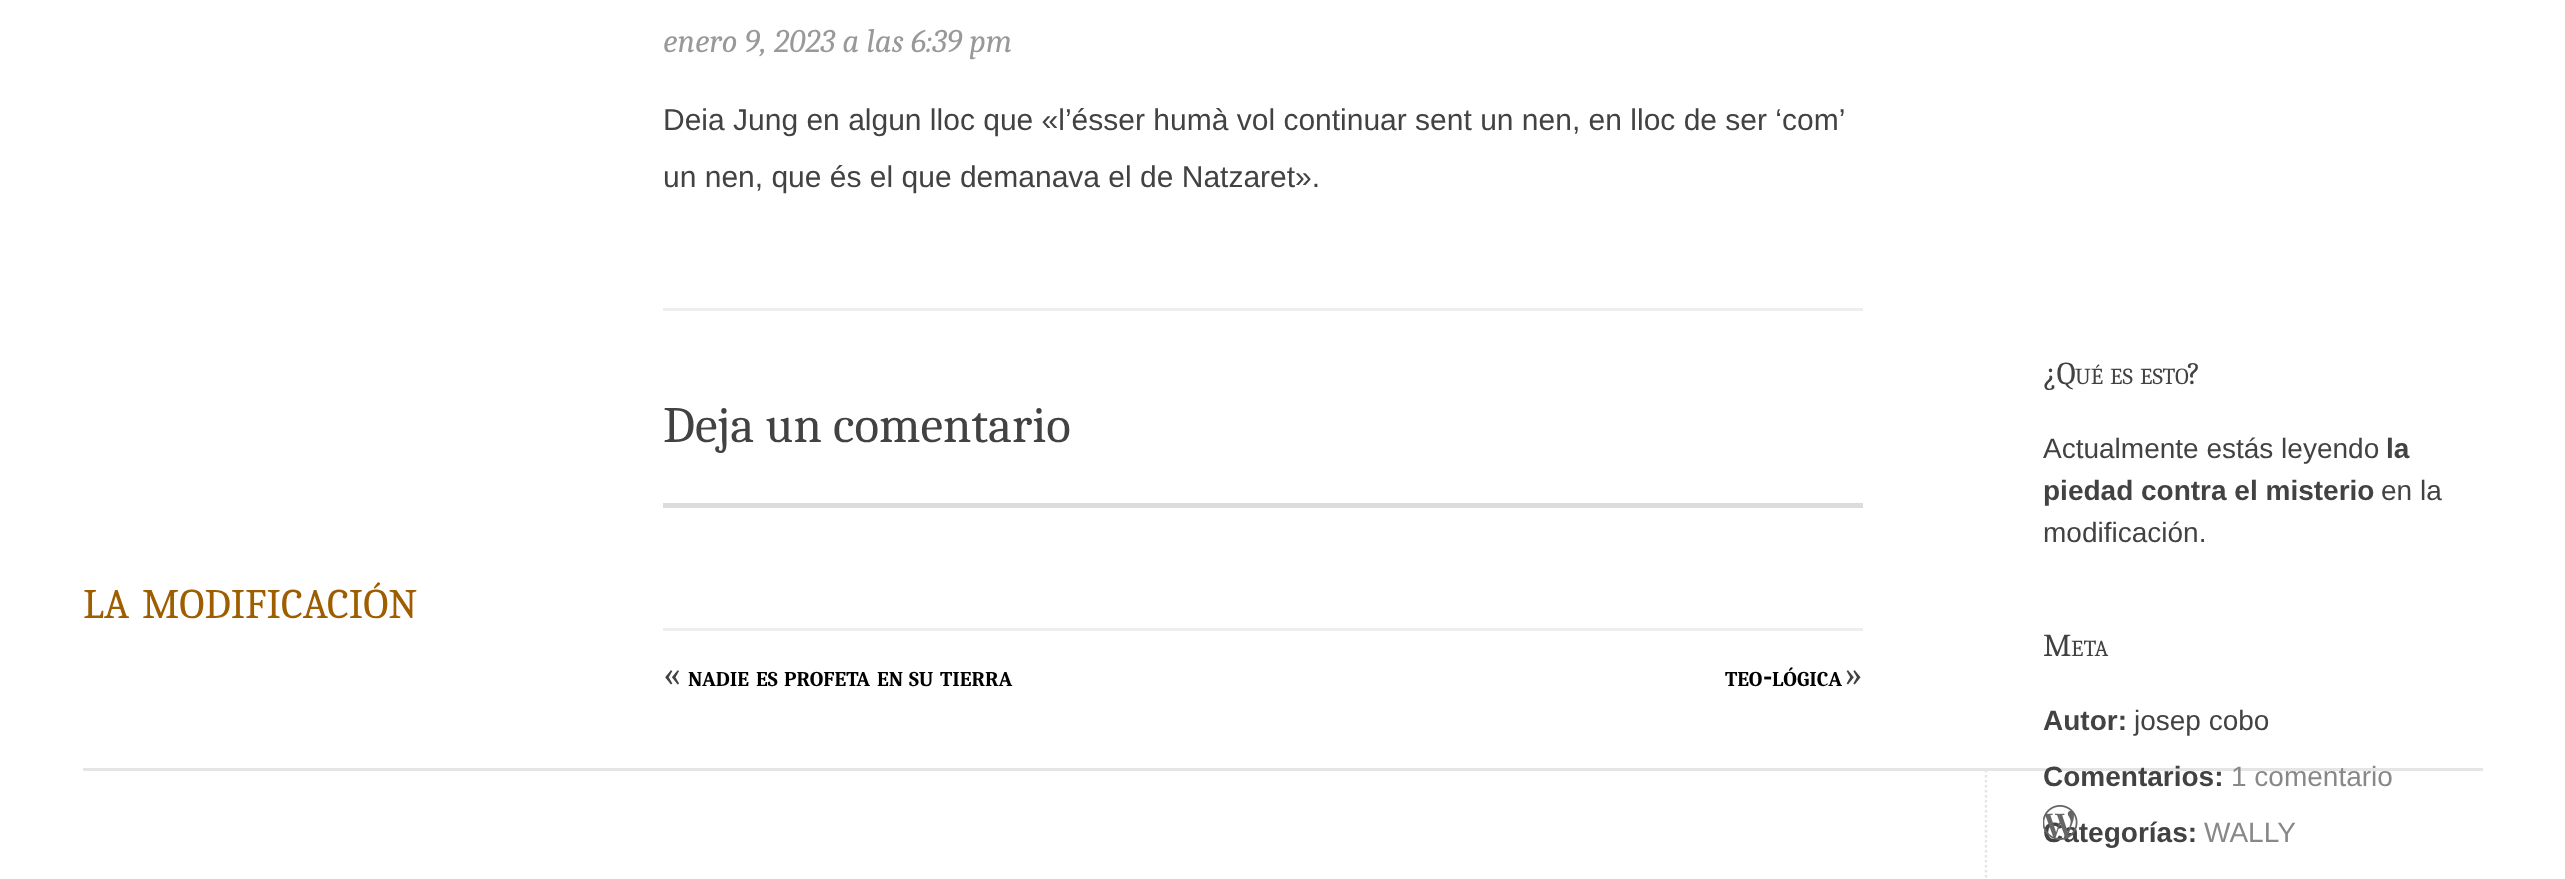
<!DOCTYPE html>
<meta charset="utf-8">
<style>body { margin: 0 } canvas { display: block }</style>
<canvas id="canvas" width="2565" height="879"></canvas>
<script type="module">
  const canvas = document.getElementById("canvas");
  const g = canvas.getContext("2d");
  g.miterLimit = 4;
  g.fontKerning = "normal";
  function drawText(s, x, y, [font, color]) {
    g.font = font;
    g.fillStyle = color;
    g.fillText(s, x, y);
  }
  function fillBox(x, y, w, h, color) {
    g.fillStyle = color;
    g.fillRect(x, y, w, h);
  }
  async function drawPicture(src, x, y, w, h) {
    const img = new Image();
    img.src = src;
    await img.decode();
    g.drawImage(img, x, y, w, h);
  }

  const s1 = ["42px Caladea", "#9E5E00"];
  const s2 = ["italic 33px Caladea", "#999999"];
  const s3 = ["30px Liberation Sans", "#424242"];
  const s4 = ["51px Caladea", "#424242"];
  const s5 = ["36px Caladea", "#424242"];
  const s6 = ["bold 21px Caladea", "#000000"];
  const s7 = ["bold 30px Caladea", "#000000"];
  const s8 = ["32px Caladea", "#424242"];
  const s9 = ["23px Caladea", "#424242"];
  const s10 = ["28px Liberation Sans", "#424242"];
  const s11 = ["bold 28px Liberation Sans", "#424242"];
  const s12 = ["28px Liberation Sans", "#888888"];

  fillBox(0, 0, 2565, 879, "#FFFFFF");
  drawText("LA", 83, 618, s1);
  drawText("MODIFICACIÓN", 142, 618, s1);
  drawText("enero 9, 2023 a las 6:39 pm", 663, 52, s2);
  drawText("Deia Jung en algun lloc que «l’ésser humà vol continuar sent un nen, en lloc de ser ‘com’", 663, 130, s3);
  drawText("un nen, que és el que demanava el de Natzaret».", 663, 187, s3);
  fillBox(663, 308, 1200, 3, "#EEEEEE");
  drawText("Deja un comentario", 663, 442, s4);
  fillBox(663, 503, 1200, 5, "#DCDCDE");
  fillBox(663, 628, 1200, 3, "#EEEEEE");
  drawText("«", 663, 686, s5);
  drawText("NADIE", 688, 686, s6);
  drawText("ES", 756, 686, s6);
  drawText("PROFETA", 784, 686, s6);
  drawText("EN", 877, 686, s6);
  drawText("SU", 909, 686, s6);
  drawText("TIERRA", 940, 686, s6);
  drawText("TEO", 1725, 686, s6);
  drawText("-", 1763, 686, s7);
  drawText("LÓGICA", 1772, 686, s6);
  drawText("»", 1845, 686, s5);
  drawText("¿Q", 2043, 384, s8);
  drawText("UÉ", 2075, 384, s9);
  drawText("ES", 2110, 384, s9);
  drawText("ESTO", 2140, 384, s9);
  drawText("?", 2187, 384, s8);
  drawText("Actualmente estás leyendo", 2043, 458, s10);
  drawText("la", 2386, 458, s11);
  drawText("piedad contra el misterio", 2043, 500, s11);
  drawText("en la", 2381, 500, s10);
  drawText("modificación.", 2043, 542, s10);
  drawText("M", 2043, 656, s8);
  drawText("ETA", 2071, 656, s9);
  drawText("Autor:", 2043, 730, s11);
  drawText("josep cobo", 2134, 730, s10);
  fillBox(83, 768, 2400, 3, "#E5E5E5");
  drawText("Comentarios:", 2043, 786, s11);
  drawText("1 comentario", 2231, 786, s12);
  drawText("Categorías:", 2043, 842, s11);
  drawText("WALLY", 2204, 842, s12);
  g.beginPath();
  g.moveTo(1986, 770);
  g.lineTo(1986, 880);
  g.strokeStyle = "#E5E5E5";
  g.lineWidth = 2.5;
  g.setLineDash([2.5, 2.5]);
  g.stroke();
  await drawPicture("pic1.png", 2043, 805, 35, 35);
</script>
